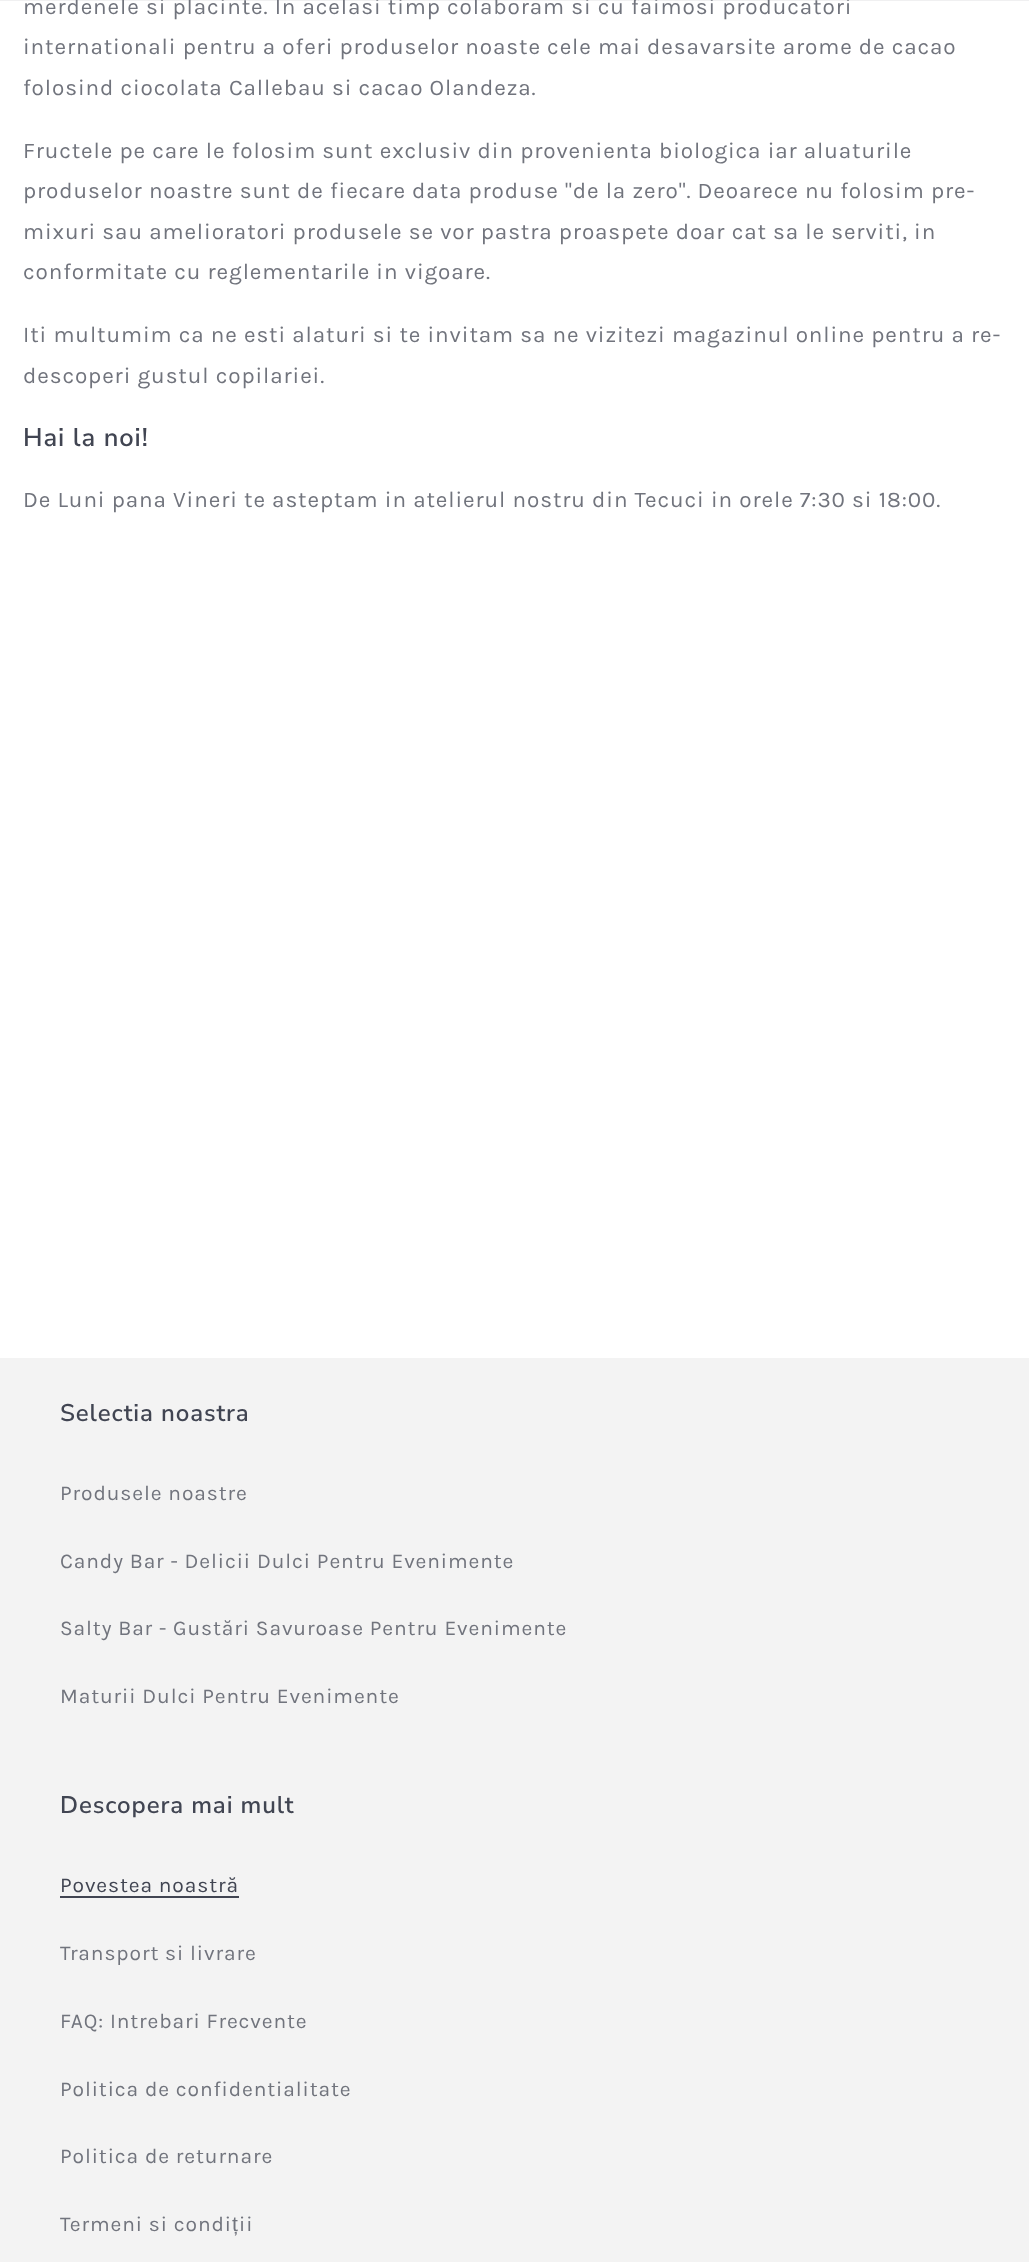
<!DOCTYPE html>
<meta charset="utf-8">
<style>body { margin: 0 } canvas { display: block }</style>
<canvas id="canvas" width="1029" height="2262"></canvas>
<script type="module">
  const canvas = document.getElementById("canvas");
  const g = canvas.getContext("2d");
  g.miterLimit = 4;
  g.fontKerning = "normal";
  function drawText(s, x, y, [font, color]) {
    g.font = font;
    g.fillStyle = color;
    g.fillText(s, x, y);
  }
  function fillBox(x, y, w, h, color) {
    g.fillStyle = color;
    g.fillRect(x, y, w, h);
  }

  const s1 = ["22.5px Karla", "#71747D"];
  const s2 = ["600 25.5px Nunito Sans", "#414552"];
  const s3 = ["600 24px Nunito Sans", "#414552"];
  const s4 = ["21px Karla", "#71747D"];
  const s5 = ["21px Karla", "#414552"];
  const s6 = ["21px Liberation Sans", "#71747D"];

  fillBox(0, 0, 1029, 2262, "#FFFFFF");
  fillBox(0, 0, 1029, 1, "rgba(65, 69, 82, 0.08)");
  g.letterSpacing = "0.9px";
  drawText("merdenele si placinte. In acelasi timp colaboram si cu faimosi producatori", 23, 14, s1);
  drawText("internationali pentru a oferi produselor noaste cele mai desavarsite arome de cacao", 23, 54, s1);
  drawText("folosind ciocolata Callebau si cacao Olandeza.", 23, 95, s1);
  drawText("Fructele pe care le folosim sunt exclusiv din provenienta biologica iar aluaturile", 23, 158, s1);
  drawText("produselor noastre sunt de fiecare data produse \"de la zero\". Deoarece nu folosim pre-", 23, 198, s1);
  drawText("mixuri sau amelioratori produsele se vor pastra proaspete doar cat sa le serviti, in", 23, 239, s1);
  drawText("conformitate cu reglementarile in vigoare.", 23, 279, s1);
  drawText("Iti multumim ca ne esti alaturi si te invitam sa ne vizitezi magazinul online pentru a re-", 23, 342, s1);
  drawText("descoperi gustul copilariei.", 23, 383, s1);
  drawText("Hai la noi!", 23, 446, s2);
  drawText("De Luni pana Vineri te asteptam in atelierul nostru din Tecuci in orele 7:30 si 18:00.", 23, 507, s1);
  fillBox(0, 1358, 1029, 904, "#F3F3F3");
  drawText("Selectia noastra", 60, 1421, s3);
  drawText("Produsele noastre", 60, 1500, s4);
  drawText("Candy Bar - Delicii Dulci Pentru Evenimente", 60, 1568, s4);
  drawText("Salty Bar - Gustări Savuroase Pentru Evenimente", 60, 1635, s4);
  drawText("Maturii Dulci Pentru Evenimente", 60, 1703, s4);
  drawText("Descopera mai mult", 60, 1813, s3);
  drawText("Povestea noastră", 60, 1892, s5);
  fillBox(60, 1896, 179, 2, "#414552");
  drawText("Transport si livrare", 60, 1960, s4);
  drawText("FAQ: Intrebari Frecvente", 60, 2028, s4);
  drawText("Politica de confidentialitate", 60, 2096, s4);
  drawText("Politica de returnare", 60, 2163, s4);
  drawText("Termeni si condi", 60, 2231, s4);
  drawText("ț", 232, 2231, s6);
  drawText("ii", 239, 2231, s4);
</script>
